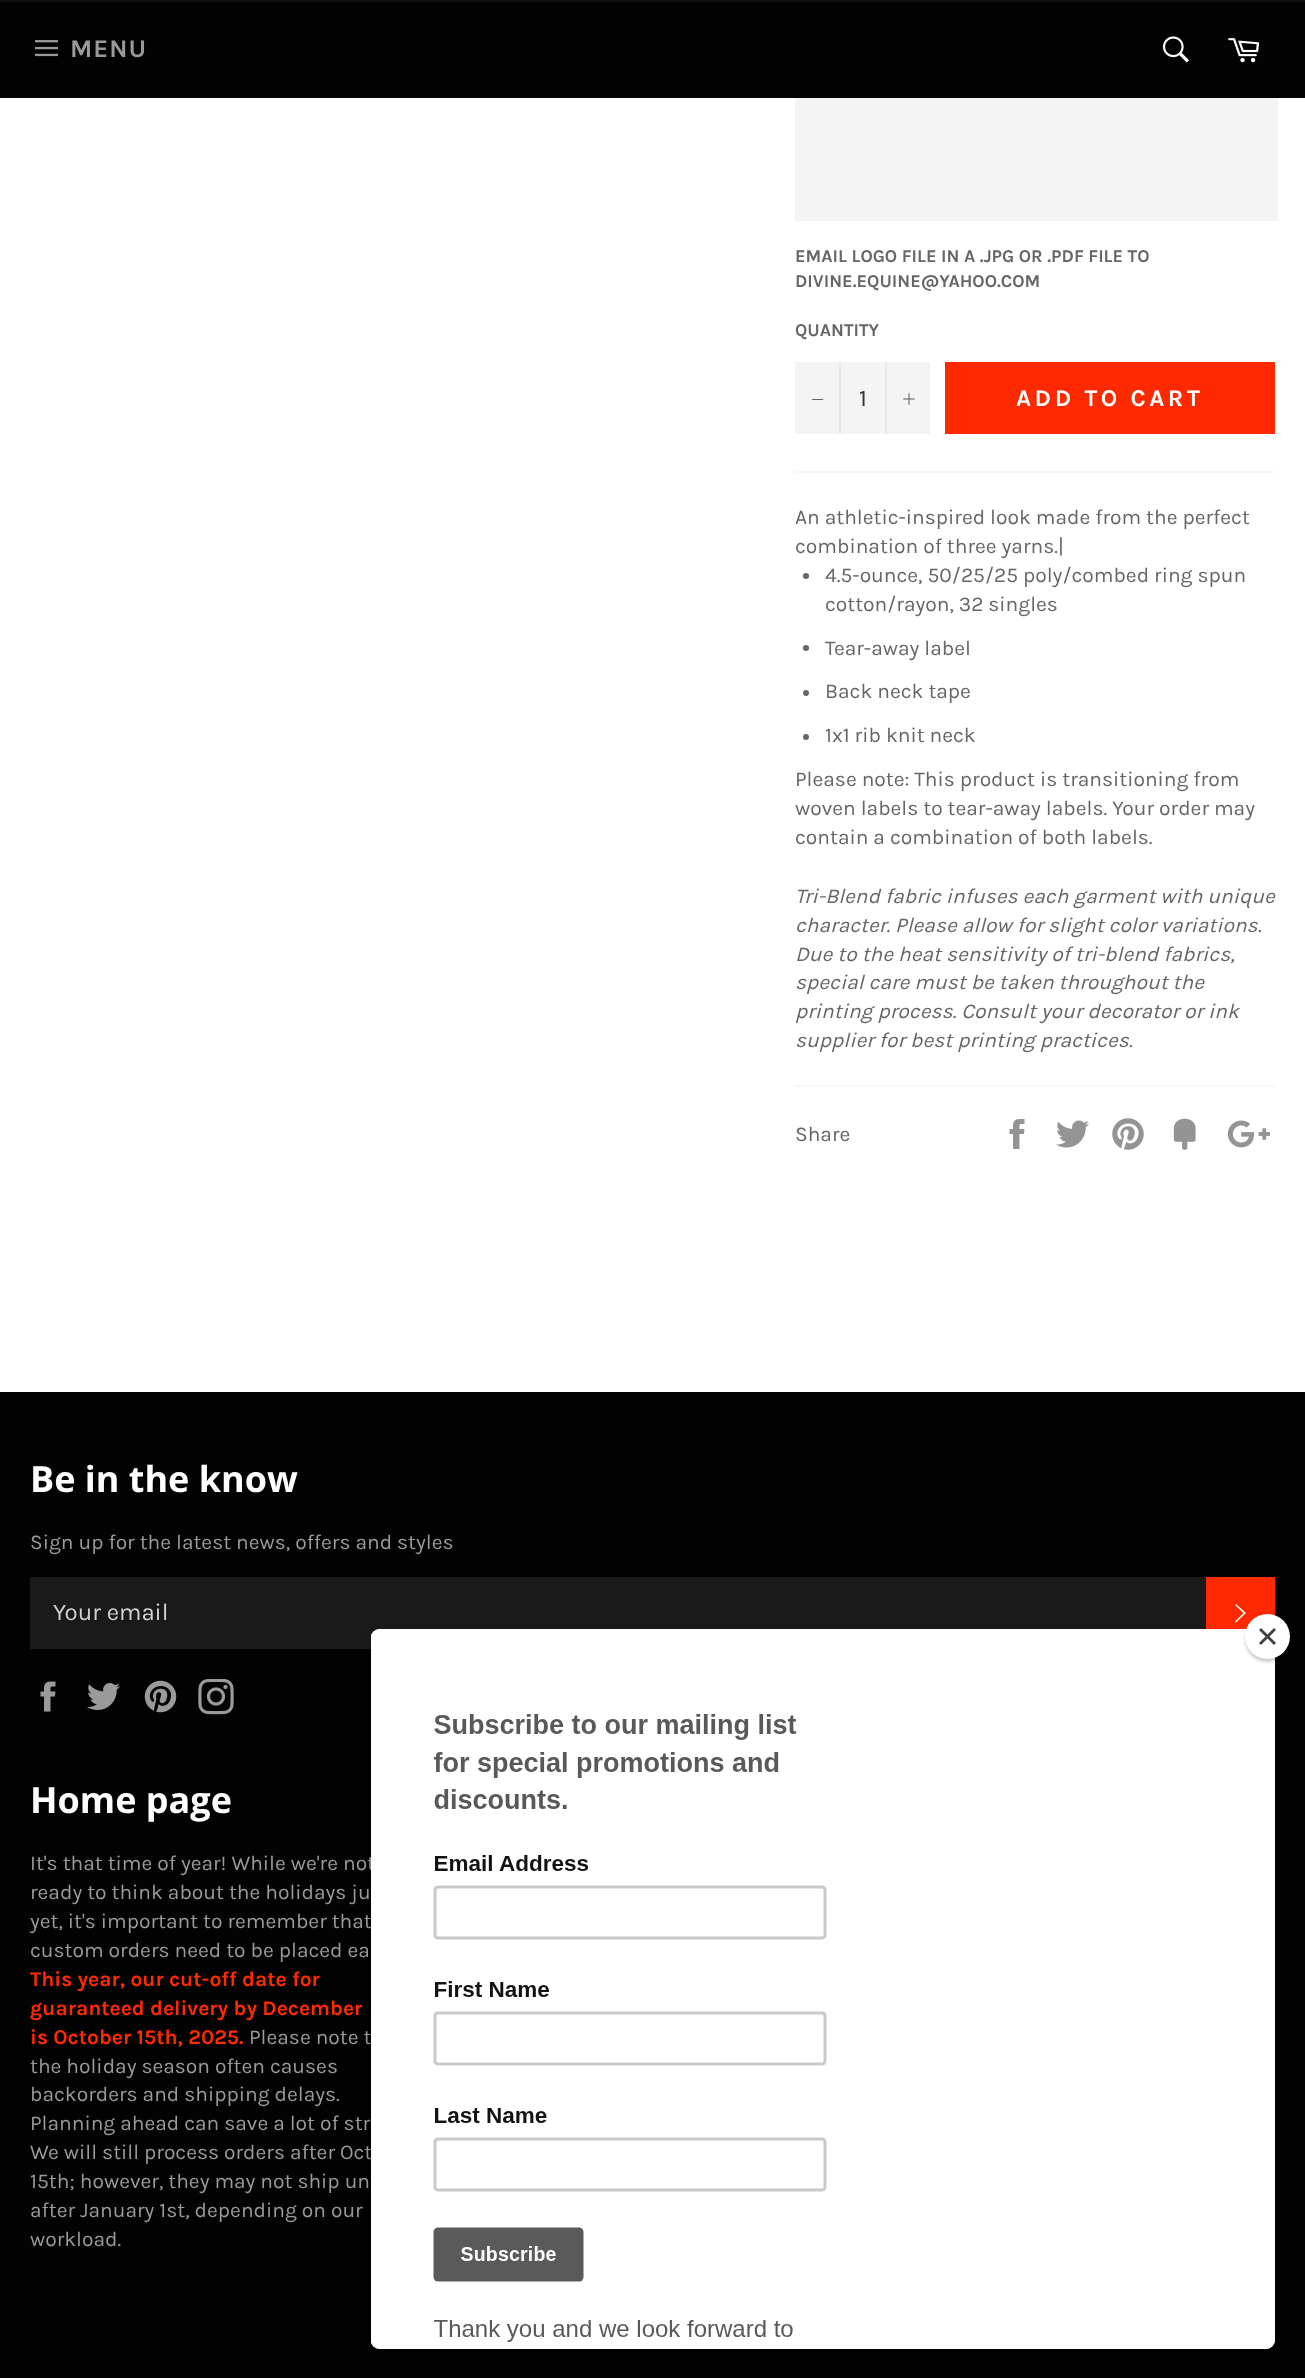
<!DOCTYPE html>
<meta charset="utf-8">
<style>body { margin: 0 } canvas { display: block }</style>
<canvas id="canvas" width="1305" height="2378"></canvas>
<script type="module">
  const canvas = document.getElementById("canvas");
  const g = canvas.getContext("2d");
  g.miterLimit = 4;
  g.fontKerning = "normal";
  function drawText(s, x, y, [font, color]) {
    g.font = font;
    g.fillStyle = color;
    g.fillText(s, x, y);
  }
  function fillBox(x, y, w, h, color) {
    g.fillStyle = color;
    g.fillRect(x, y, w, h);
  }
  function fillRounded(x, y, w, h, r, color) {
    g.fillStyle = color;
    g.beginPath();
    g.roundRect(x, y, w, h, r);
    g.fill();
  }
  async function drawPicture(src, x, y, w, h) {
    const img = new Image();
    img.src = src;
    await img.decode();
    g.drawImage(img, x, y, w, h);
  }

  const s1 = ["bold 25.5px Karla", "#9A9A9A"];
  const s2 = ["bold 18px Karla", "#666666"];
  const s3 = ["24px Karla", "#333333"];
  const s4 = ["bold 24px Karla", "#FFFFFF"];
  const s5 = ["21px Karla", "#666666"];
  const s6 = ["italic 21px Karla", "#666666"];
  const s7 = ["bold 36px Open Sans", "#FFFFFF"];
  const s8 = ["21px Karla", "#9A9A9A"];
  const s9 = ["24px Karla", "#D1D1D1"];
  const s10 = ["bold 21px Karla", "#FF2A00"];

  fillBox(0, 0, 1305, 2378, "#FFFFFF");
  fillBox(0, 2, 1305, 96, "#030303");
  fillBox(0, 0, 1305, 2, "#101010");
  await drawPicture("pic1.png", 35, 40, 23, 17);
  g.letterSpacing = "1px";
  drawText("MENU", 70, 57, s1);
  await drawPicture("pic2.png", 1162, 36, 27, 27);
  await drawPicture("pic3.png", 1228, 38, 31, 25);
  fillBox(795, 98, 483, 123, "#F4F4F4");
  g.letterSpacing = "0px";
  drawText("EMAIL LOGO FILE IN A .JPG OR .PDF FILE TO", 795, 262, s2);
  drawText("DIVINE.EQUINE@YAHOO.COM", 795, 287, s2);
  drawText("QUANTITY", 795, 336, s2);
  fillBox(795, 362, 135, 72, "#F4F4F4");
  fillBox(839, 362, 2, 72, "#E7E7E7");
  fillBox(812, 399, 11, 1, "#666666");
  drawText("1", 859, 406, s3);
  fillBox(885, 362, 2, 72, "#E7E7E7");
  await drawPicture("pic4.png", 903, 393, 12, 12);
  fillBox(945, 362, 330, 72, "#FF2900");
  g.letterSpacing = "3.6px";
  drawText("ADD TO CART", 1016, 406, s4);
  fillBox(795, 471, 480, 2, "#F7F7F7");
  g.letterSpacing = "0px";
  drawText("An athletic-inspired look made from the perfect", 795, 524, s5);
  drawText("combination of three yarns.|", 795, 553, s5);
  g.beginPath();
  g.arc(806, 576, 3, 0, Math.PI * 2);
  g.fill();
  drawText("4.5-ounce, 50/25/25 poly/combed ring spun", 825, 582, s5);
  drawText("cotton/rayon, 32 singles", 825, 611, s5);
  g.beginPath();
  g.arc(806, 648, 3, 0, Math.PI * 2);
  g.fill();
  drawText("Tear-away label", 825, 655, s5);
  g.beginPath();
  g.arc(806, 693, 3, 0, Math.PI * 2);
  g.fill();
  drawText("Back neck tape", 825, 698, s5);
  g.beginPath();
  g.arc(806, 737, 3, 0, Math.PI * 2);
  g.fill();
  drawText("1x1 rib knit neck", 825, 742, s5);
  drawText("Please note: This product is transitioning from", 795, 786, s5);
  drawText("woven labels to tear-away labels. Your order may", 795, 815, s5);
  drawText("contain a combination of both labels.", 795, 844, s5);
  drawText("Tri-Blend fabric infuses each garment with unique", 795, 903, s6);
  drawText("character. Please allow for slight color variations.", 795, 932, s6);
  drawText("Due to the heat sensitivity of tri-blend fabrics,", 795, 961, s6);
  drawText("special care must be taken throughout the", 795, 989, s6);
  drawText("printing process. Consult your decorator or ink", 795, 1018, s6);
  drawText("supplier for best printing practices.", 795, 1047, s6);
  fillBox(795, 1085, 480, 2, "#F7F7F7");
  drawText("Share", 795, 1141, s5);
  await drawPicture("pic5.png", 1009, 1119, 16, 30);
  await drawPicture("pic6.png", 1056, 1120, 33, 28);
  await drawPicture("pic7.png", 1112, 1118, 32, 32);
  await drawPicture("pic8.png", 1173, 1118, 23, 32);
  await drawPicture("pic9.png", 1227, 1120, 43, 28);
  fillBox(0, 1392, 1305, 986, "#030303");
  drawText("Be in the know", 30, 1492, s7);
  drawText("Sign up for the latest news, offers and styles", 30, 1549, s8);
  fillBox(30, 1577, 1176, 72, "#1A1A1A");
  drawText("Your email", 53, 1620, s9);
  fillBox(1206, 1577, 69, 52, "#FF2900");
  g.fillStyle = "#FFFFFF";
  g.beginPath();
  g.moveTo(1235, 1605);
  g.lineTo(1236, 1604);
  g.lineTo(1246, 1613);
  g.lineTo(1236, 1622.5);
  g.lineTo(1235, 1621.5);
  g.lineTo(1243.5, 1613);
  g.closePath();
  g.fill();
  await drawPicture("pic10.png", 40, 1681, 16, 31);
  await drawPicture("pic11.png", 87, 1683, 33, 27);
  await drawPicture("pic12.png", 144, 1680, 33, 33);
  await drawPicture("pic13.png", 198, 1679, 36, 36);
  drawText("Home page", 30, 1813, s7);
  drawText("It's that time of year! While we're not", 30, 1870, s8);
  drawText("ready to think about the holidays ju", 30, 1899, s8);
  drawText("yet, it's important to remember that", 30, 1928, s8);
  drawText("custom orders need to be placed ea", 30, 1957, s8);
  drawText("This year, our cut-off date for", 30, 1986, s10);
  drawText("guaranteed delivery by December", 30, 2015, s10);
  drawText("is October 15th, 2025.", 30, 2044, s10);
  drawText("Please note t", 249, 2044, s8);
  drawText("the holiday season often causes", 30, 2073, s8);
  drawText("backorders and shipping delays.", 30, 2101, s8);
  drawText("Planning ahead can save a lot of str", 30, 2130, s8);
  drawText("We will still process orders after Oct", 30, 2159, s8);
  drawText("15th; however, they may not ship un", 30, 2188, s8);
  drawText("after January 1st, depending on our", 30, 2217, s8);
  drawText("workload.", 30, 2246, s8);
  g.fillStyle = "rgba(0, 0, 0, 0.2)";
  g.filter = "blur(3px)";
  g.beginPath();
  g.roundRect(371, 1632, 904, 720, 9);
  g.fill();
  g.filter = "none";
  fillRounded(371, 1629, 904, 720, 9, "#FFFFFF");
  await drawPicture("pic14.png", 371, 1629, 904, 720);
  g.fillStyle = "rgba(0, 0, 0, 0.2)";
  g.filter = "blur(1.5px)";
  g.beginPath();
  g.roundRect(1245, 1617, 45, 45, 22.5);
  g.fill();
  g.filter = "none";
  g.fillStyle = "#FFFFFF";
  g.beginPath();
  g.arc(1267.5, 1636.5, 22.5, 0, Math.PI * 2);
  g.fill();
  g.fillStyle = "#414141";
  g.beginPath();
  g.moveTo(1274, 1628);
  g.lineTo(1276, 1630);
  g.lineTo(1261, 1645);
  g.lineTo(1259, 1643);
  g.closePath();
  g.fill();
  g.beginPath();
  g.moveTo(1259, 1630);
  g.lineTo(1261, 1628);
  g.lineTo(1276, 1643);
  g.lineTo(1274, 1645);
  g.closePath();
  g.fill();
</script>
